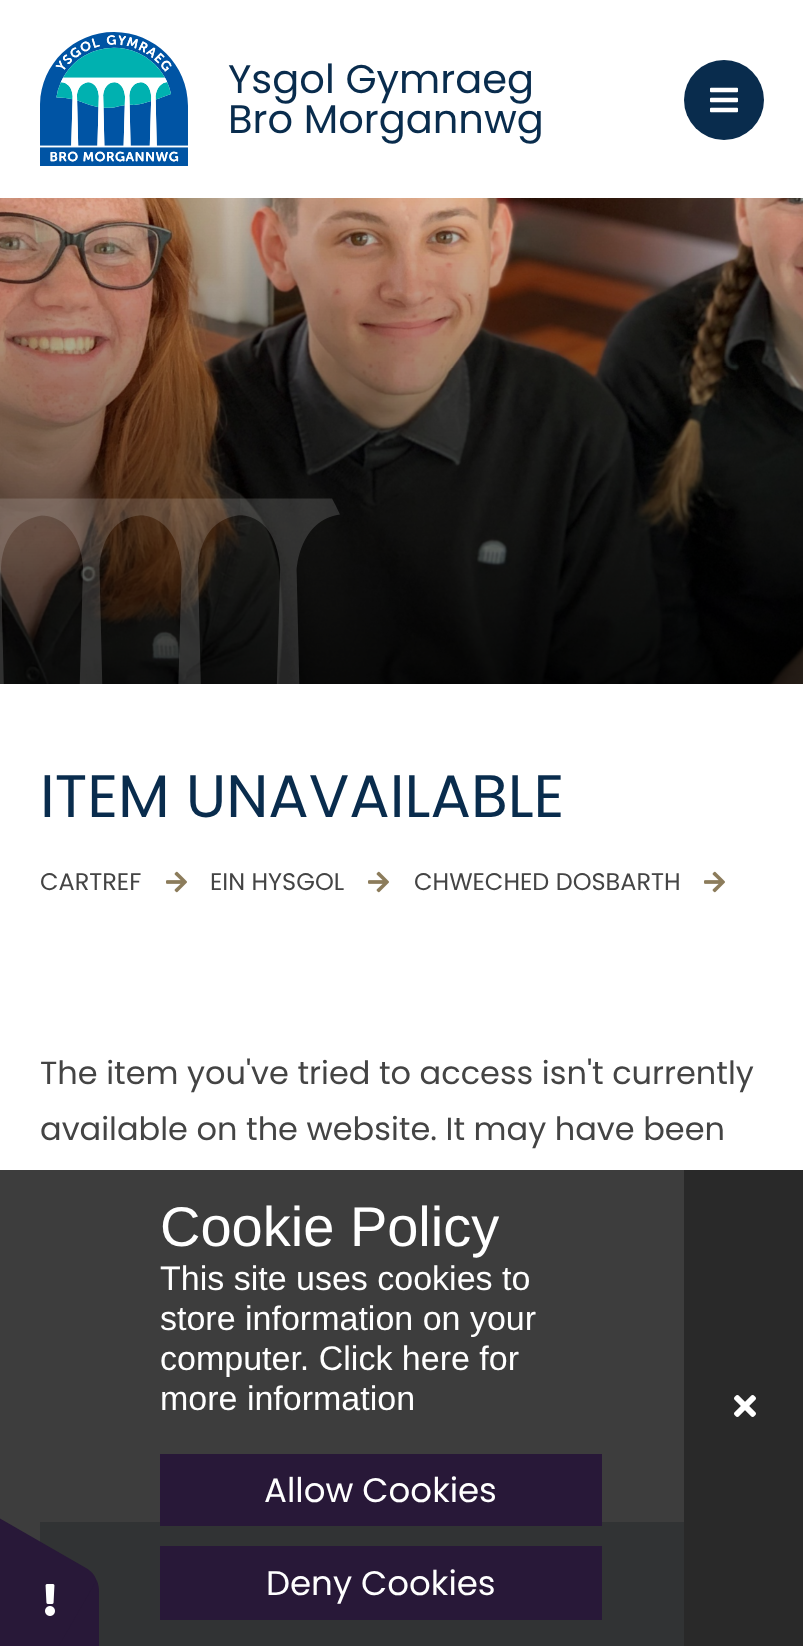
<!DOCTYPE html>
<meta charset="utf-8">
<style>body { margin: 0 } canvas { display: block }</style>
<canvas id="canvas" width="803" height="1646"></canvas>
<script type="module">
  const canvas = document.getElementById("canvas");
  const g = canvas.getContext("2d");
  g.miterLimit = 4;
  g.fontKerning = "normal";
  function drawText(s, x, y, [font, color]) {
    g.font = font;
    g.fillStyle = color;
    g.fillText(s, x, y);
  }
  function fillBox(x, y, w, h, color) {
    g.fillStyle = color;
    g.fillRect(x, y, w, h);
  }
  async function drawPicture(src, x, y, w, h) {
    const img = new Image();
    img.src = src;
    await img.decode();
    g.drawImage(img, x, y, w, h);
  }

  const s1 = ["40px Poppins", "#092C4D"];
  const s2 = ["60px Poppins", "#092C4D"];
  const s3 = ["24px Poppins", "#444444"];
  const s4 = ["32px Poppins", "#444444"];
  const s5 = ["56px Liberation Sans", "#FFFFFF"];
  const s6 = ["34px Liberation Sans", "#FFFFFF"];
  const s7 = ["34px Poppins", "#FFFFFF"];

  fillBox(0, 0, 803, 1646, "#FFFFFF");
  fillBox(0, 1170, 684, 372, "#3D3D3D");
  await drawPicture("pic1.png", 40, 32, 148, 134);
  drawText("Ysgol Gymraeg", 228, 93, s1);
  drawText("Bro Morgannwg", 228, 133, s1);
  g.beginPath();
  g.arc(724, 100, 40, 0, Math.PI * 2);
  g.fill();
  await drawPicture("pic2.png", 710, 87, 28, 26);
  await drawPicture("pic3.png", 0, 198, 803, 486);
  await drawPicture("pic4.png", 0, 498, 340, 186);
  drawText("ITEM UNAVAILABLE", 40, 817, s2);
  drawText("CARTREF", 40, 890, s3);
  await drawPicture("pic5.png", 166, 871, 21, 22);
  drawText("EIN HYSGOL", 210, 890, s3);
  await drawPicture("pic5.png", 368, 871, 21, 22);
  drawText("CHWECHED DOSBARTH", 414, 890, s3);
  await drawPicture("pic5.png", 704, 871, 21, 22);
  drawText("The item you've tried to access isn't currently", 40, 1084, s4);
  drawText("available on the website. It may have been", 40, 1140, s4);
  fillBox(40, 1522, 644, 124, "#313334");
  g.fillStyle = "#281838";
  g.beginPath();
  g.moveTo(99, 1592);
  g.lineTo(99, 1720);
  g.bezierCurveTo(99, 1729, 96, 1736, 91, 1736);
  g.lineTo(-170, 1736);
  g.bezierCurveTo(-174, 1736, -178, 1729, -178, 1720);
  g.lineTo(-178, 1592);
  g.bezierCurveTo(-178, 1583, -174, 1576, -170, 1576);
  g.lineTo(91, 1576);
  g.bezierCurveTo(96, 1576, 99, 1583, 99, 1592);
  g.closePath();
  g.fill();
  g.beginPath();
  g.moveTo(-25, 1504);
  g.lineTo(86, 1568);
  g.bezierCurveTo(93, 1572, 98, 1579, 95, 1583);
  g.lineTo(-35, 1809);
  g.bezierCurveTo(-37, 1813, -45, 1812, -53, 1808);
  g.lineTo(-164, 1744);
  g.bezierCurveTo(-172, 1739, -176, 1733, -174, 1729);
  g.lineTo(-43, 1503);
  g.bezierCurveTo(-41, 1499, -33, 1499, -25, 1504);
  g.closePath();
  g.fill();
  await drawPicture("pic6.png", 45, 1584, 10, 32);
  drawText("Cookie Policy", 160, 1246, s5);
  drawText("This site uses cookies to", 160, 1290, s6);
  drawText("store information on your", 160, 1330, s6);
  drawText("computer. Click here for", 160, 1370, s6);
  drawText("more information", 160, 1410, s6);
  fillBox(160, 1454, 442, 72, "#281838");
  drawText("Allow Cookies", 264, 1502, s7);
  fillBox(160, 1546, 442, 74, "#281838");
  drawText("Deny Cookies", 266, 1595, s7);
  fillBox(684, 1170, 119, 476, "#292929");
  await drawPicture("pic7.png", 734, 1395, 22, 22);
</script>
